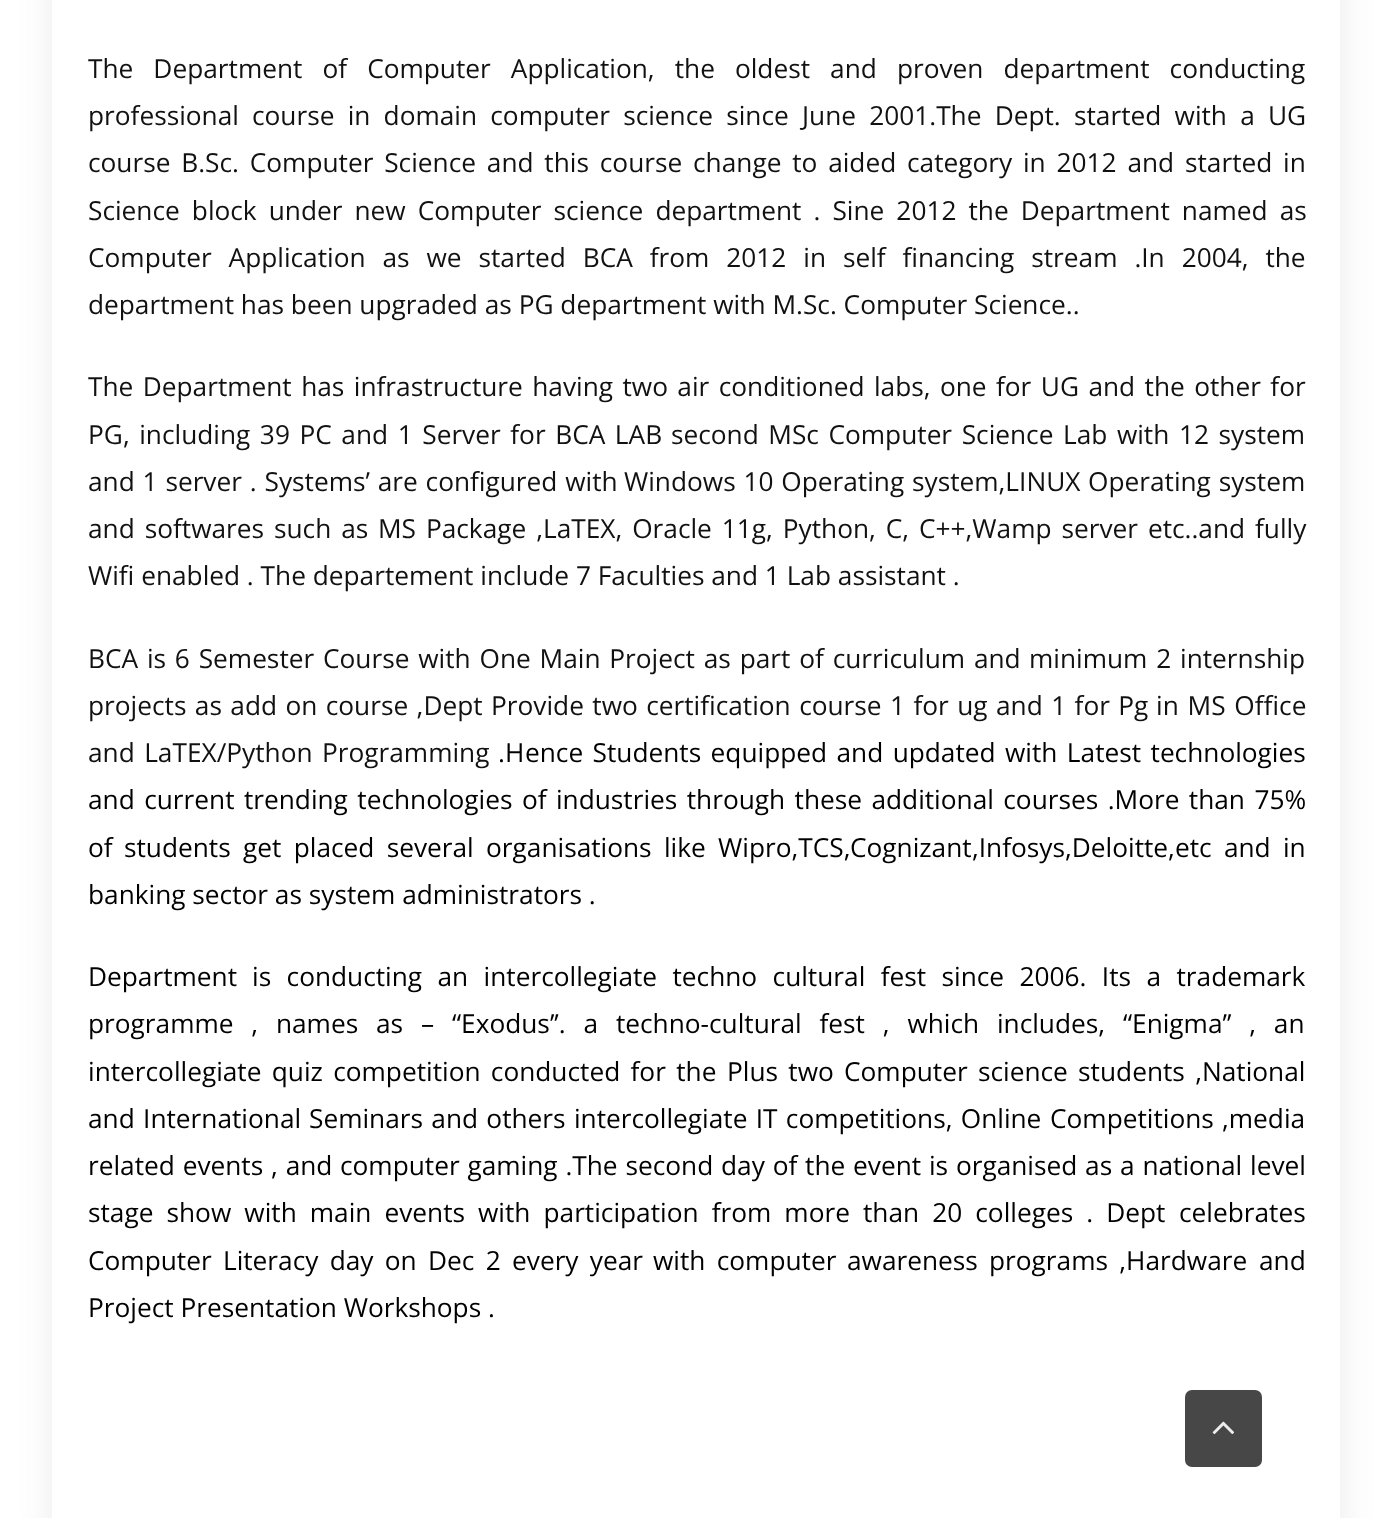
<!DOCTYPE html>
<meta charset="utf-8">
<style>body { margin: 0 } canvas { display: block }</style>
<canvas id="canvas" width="1393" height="1518"></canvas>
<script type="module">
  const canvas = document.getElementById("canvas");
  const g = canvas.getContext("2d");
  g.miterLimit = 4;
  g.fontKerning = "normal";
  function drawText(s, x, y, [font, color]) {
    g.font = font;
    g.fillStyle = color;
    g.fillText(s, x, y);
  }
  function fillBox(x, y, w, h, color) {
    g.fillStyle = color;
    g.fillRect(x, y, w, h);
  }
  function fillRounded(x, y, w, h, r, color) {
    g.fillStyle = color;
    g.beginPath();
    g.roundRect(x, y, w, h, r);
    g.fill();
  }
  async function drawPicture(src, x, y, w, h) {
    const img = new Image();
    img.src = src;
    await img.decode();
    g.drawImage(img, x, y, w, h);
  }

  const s1 = ["26.25px Open Sans", "#111111"];
  const s2 = ["26.25px Open Sans", "#000000"];

  fillBox(0, 0, 1393, 1518, "#FFFFFF");
  g.fillStyle = "rgba(61, 61, 61, 0.1)";
  g.filter = "blur(17.5px)";
  g.beginPath();
  g.roundRect(53, -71, 1288, 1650, 18);
  g.fill();
  g.filter = "none";
  g.fillStyle = "#FFFFFF";
  g.beginPath();
  g.moveTo(70, -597);
  g.lineTo(1323, -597);
  g.bezierCurveTo(1333, -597, 1340, -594, 1340, -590);
  g.lineTo(1340, 1517);
  g.bezierCurveTo(1340, 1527, 1333, 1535, 1323, 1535);
  g.lineTo(70, 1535);
  g.bezierCurveTo(60, 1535, 52, 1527, 52, 1517);
  g.lineTo(52, -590);
  g.bezierCurveTo(52, -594, 60, -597, 70, -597);
  g.closePath();
  g.fill();
  g.wordSpacing = "13.25px";
  drawText("The Department of Computer Application, the oldest and proven department conducting", 88, 78, s1);
  g.wordSpacing = "0px";
  drawText("professional", 88, 125, s1);
  g.wordSpacing = "6.4px";
  drawText("course in domain computer science since June 2001.The Dept. started with a UG", 252, 125, s1);
  g.wordSpacing = "4px";
  drawText("course B.Sc. Computer Science and this course change to aided", 88, 172, s1);
  drawText("category in 2012 and started in", 907, 172, s1);
  g.wordSpacing = "5.25px";
  drawText("Science block under new Computer science department . Sine 2012 the Department named as", 88, 220, s1);
  g.wordSpacing = "10.1px";
  drawText("Computer Application as we started BCA from 2012 in self financing stream .In 2004, the", 88, 267, s1);
  g.wordSpacing = "0px";
  drawText("department has been upgraded as PG department with M.Sc. Computer Science..", 88, 314, s1);
  g.wordSpacing = "2.6px";
  drawText("The Department has infrastructure having two air conditioned labs, one for UG and the other for", 88, 396, s1);
  g.wordSpacing = "2.75px";
  drawText("PG, including 39 PC and 1 Server for BCA LAB", 88, 444, s1);
  drawText("second MSc Computer Science Lab with 12 system", 671, 444, s1);
  g.wordSpacing = "1px";
  drawText("and 1 server . Systems’ are configured with", 88, 491, s1);
  drawText("Windows 10 Operating system,LINUX", 624, 491, s1);
  drawText("Operating system", 1088, 491, s1);
  g.wordSpacing = "3.1px";
  drawText("and softwares such as", 88, 538, s1);
  drawText("MS Package ,LaTEX, Oracle 11g, Python, C, C++,Wamp server etc..and fully", 378, 538, s1);
  g.wordSpacing = "0px";
  drawText("Wifi enabled . The departement include 7 Faculties and 1 Lab assistant .", 88, 585, s1);
  g.wordSpacing = "2px";
  drawText("BCA is 6 Semester Course with One Main Project as part of curriculum and", 88, 668, s1);
  drawText("minimum 2 internship", 1029, 668, s1);
  g.wordSpacing = "1.6px";
  drawText("projects as add on course ,Dept Provide two certification course 1 for ug and 1 for Pg", 88, 715, s1);
  g.wordSpacing = "2px";
  drawText("in MS Office", 1156, 715, s1);
  g.wordSpacing = "2.6px";
  drawText("and LaTEX/Python Programming", 88, 762, s1);
  g.wordSpacing = "0px";
  drawText(".H", 498, 762, s2);
  g.wordSpacing = "2.6px";
  drawText("ence Students equipped and updated with Latest technologies", 525, 762, s2);
  drawText("and current trending technologies of industries through these additional courses .More than 75%", 88, 809, s2);
  g.wordSpacing = "0px";
  drawText("of", 88, 857, s2);
  g.wordSpacing = "5.5px";
  drawText("students get placed several organisations like Wipro,TCS,", 124, 857, s2);
  g.wordSpacing = "0px";
  drawText("Cognizant", 850, 857, s2);
  g.wordSpacing = "5.5px";
  drawText(",Infosys,Deloitte,etc and in", 972, 857, s2);
  g.wordSpacing = "0px";
  drawText("banking sector as system administrators .", 88, 904, s2);
  drawText("Department", 88, 986, s2);
  g.wordSpacing = "8.6px";
  drawText("is conducting an intercollegiate techno cultural fest since 2006. Its a trademark", 252, 986, s2);
  g.wordSpacing = "11px";
  drawText("programme , names as", 88, 1033, s2);
  drawText("– “Exodus’’. a techno-cultural fest , which includes, “Enigma’’ , an", 421, 1033, s2);
  g.wordSpacing = "3.5px";
  drawText("intercollegiate quiz competition conducted for the", 88, 1081, s2);
  drawText("Plus two", 727, 1081, s2);
  drawText("Computer science students ,National", 844, 1081, s2);
  g.wordSpacing = "1.5px";
  drawText("and International", 88, 1128, s2);
  drawText("Seminars and others intercollegiate IT competitions, Online", 309, 1128, s2);
  g.wordSpacing = "0px";
  drawText("Competitions", 1050, 1128, s2);
  drawText(",media", 1222, 1128, s2);
  g.wordSpacing = "1px";
  drawText("related events , and", 88, 1175, s2);
  drawText("computer gaming .The second day of the event is organised as a national level", 340, 1175, s2);
  g.wordSpacing = "6.25px";
  drawText("stage show with main events", 88, 1222, s2);
  drawText("with participation from more than 20 colleges . Dept", 478, 1222, s2);
  g.wordSpacing = "0px";
  drawText("celebrates", 1179, 1222, s2);
  g.wordSpacing = "4.5px";
  drawText("Computer Literacy day on Dec 2 every year", 88, 1270, s2);
  drawText("with computer", 653, 1270, s2);
  g.wordSpacing = "0px";
  drawText("awareness", 847, 1270, s2);
  g.wordSpacing = "4.5px";
  drawText("programs ,Hardware", 989, 1270, s2);
  g.wordSpacing = "0px";
  drawText("and", 1259, 1270, s2);
  drawText("Project Presentation Workshops .", 88, 1317, s2);
  fillRounded(1185, 1390, 77, 77, 7, "#474747");
  await drawPicture("pic1.png", 1212, 1421, 22, 14);
</script>
